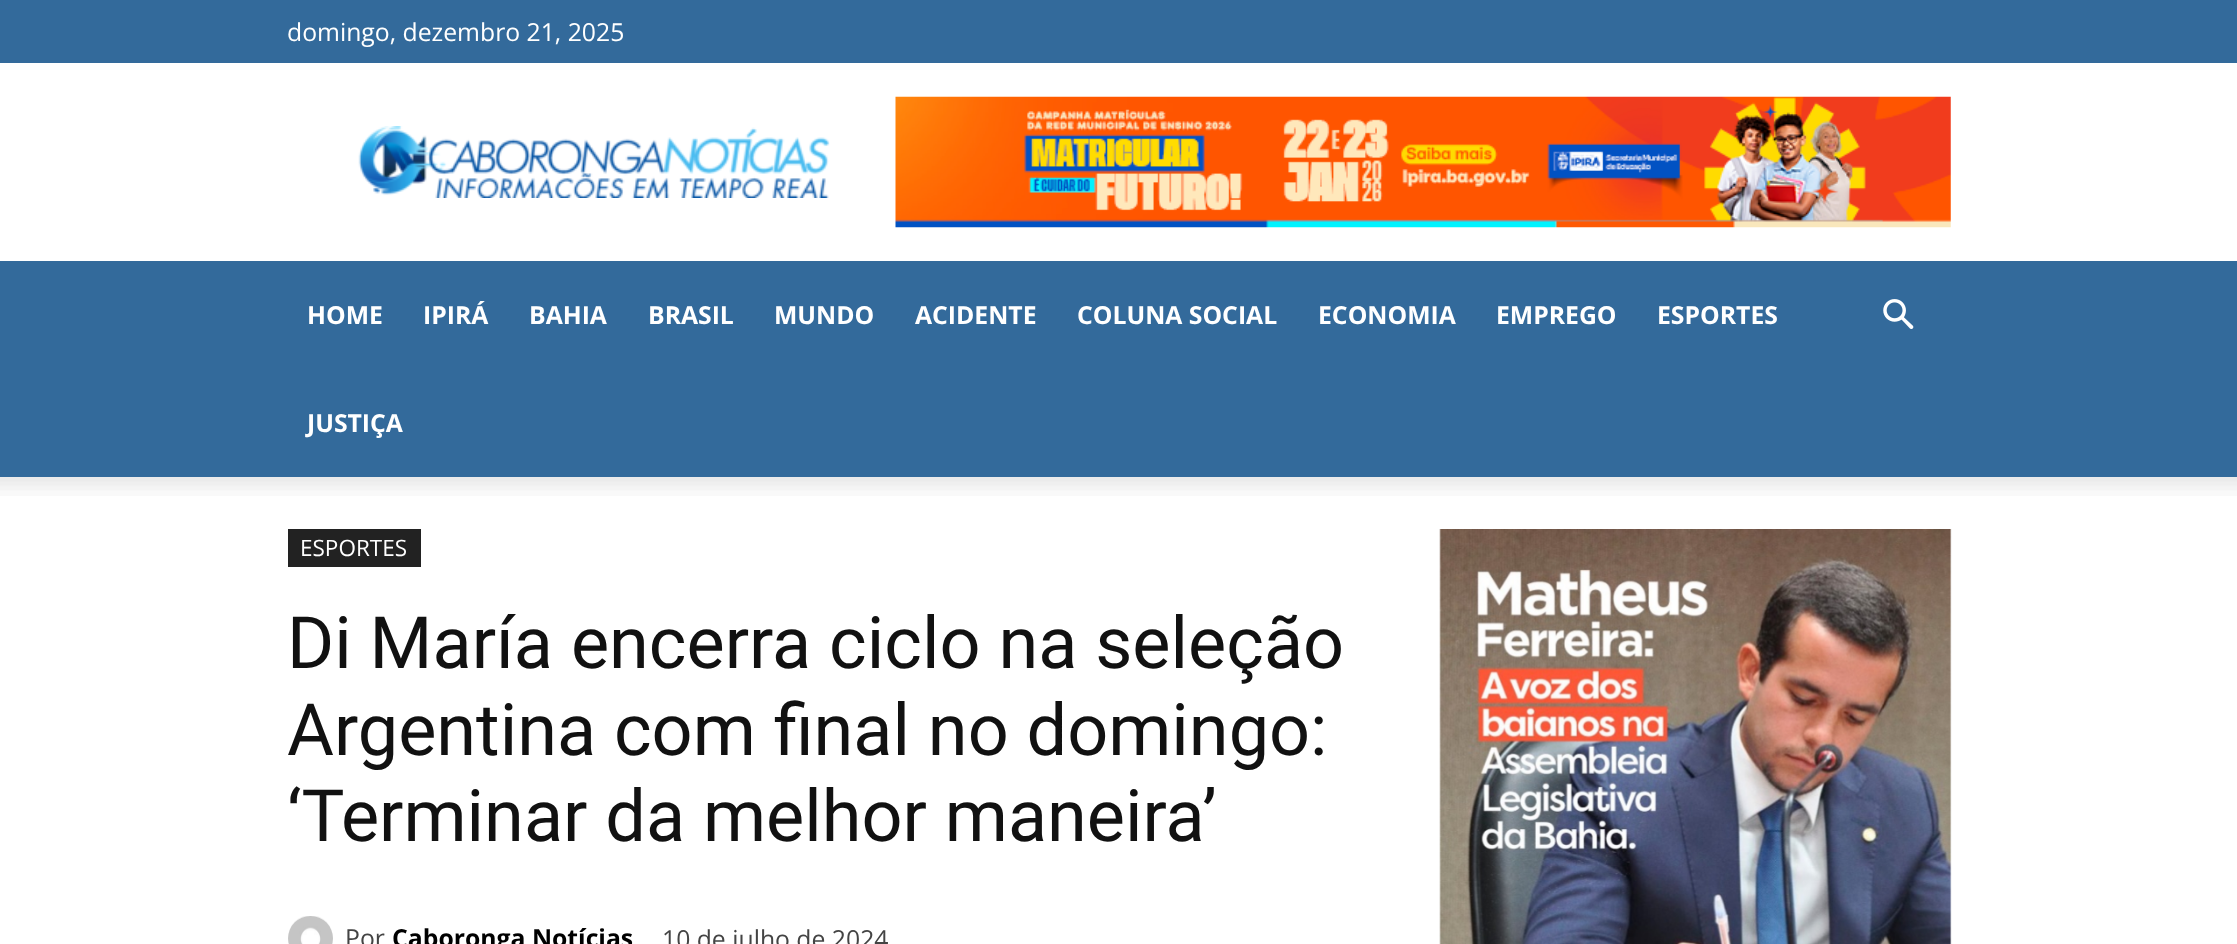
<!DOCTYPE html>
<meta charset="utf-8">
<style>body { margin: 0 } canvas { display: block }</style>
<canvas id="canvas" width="2237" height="944"></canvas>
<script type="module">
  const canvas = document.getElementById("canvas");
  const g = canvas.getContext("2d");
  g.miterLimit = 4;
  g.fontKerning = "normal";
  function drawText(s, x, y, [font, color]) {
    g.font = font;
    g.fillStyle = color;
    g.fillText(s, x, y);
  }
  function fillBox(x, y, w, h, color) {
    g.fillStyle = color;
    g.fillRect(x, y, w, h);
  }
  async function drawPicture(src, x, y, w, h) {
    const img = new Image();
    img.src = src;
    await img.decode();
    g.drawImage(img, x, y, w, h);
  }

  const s1 = ["24.75px Open Sans", "#FFFFFF"];
  const s2 = ["bold 24.75px Open Sans", "#FFFFFF"];
  const s3 = ["22.5px Open Sans", "#FFFFFF"];
  const s4 = ["72px Roboto", "#111111"];
  const s5 = ["24.75px Open Sans", "#444444"];
  const s6 = ["bold 24.75px Open Sans", "#000000"];

  fillBox(0, 0, 2237, 944, "#FFFFFF");
  fillBox(0, 0, 2237, 63, "#336A9B");
  drawText("domingo, dezembro 21, 2025", 287, 41, s1);
  await drawPicture("pic1.png", 358, 126, 472, 72);
  await drawPicture("pic2.png", 895, 96, 1056, 132);
  fillBox(0, 261, 2237, 216, "#336A9B");
  drawText("HOME", 307, 324, s2);
  drawText("IPIRÁ", 423, 324, s2);
  drawText("BAHIA", 529, 324, s2);
  drawText("BRASIL", 648, 324, s2);
  drawText("MUNDO", 774, 324, s2);
  drawText("ACIDENTE", 915, 324, s2);
  drawText("COLUNA SOCIAL", 1077, 324, s2);
  drawText("ECONOMIA", 1318, 324, s2);
  drawText("EMPREGO", 1496, 324, s2);
  drawText("ESPORTES", 1657, 324, s2);
  drawText("JUSTIÇA", 307, 432, s2);
  await drawPicture("pic3.png", 1883, 299, 31, 30);
  await drawPicture("pic4.png", 0, 477, 2237, 19);
  fillBox(288, 529, 133, 38, "#222222");
  drawText("ESPORTES", 300, 556, s3);
  drawText("Di María encerra ciclo na seleção", 287, 668, s4);
  drawText("Argentina com final no domingo:", 287, 755, s4);
  drawText("‘Terminar da melhor maneira’", 287, 841, s4);
  await drawPicture("pic5.png", 288, 916, 45, 28);
  drawText("Por", 345, 947, s5);
  drawText("Caboronga Notícias", 392, 947, s6);
  drawText("10 de julho de 2024", 662, 948, s5);
  await drawPicture("pic6.png", 1439, 529, 513, 415);
</script>
